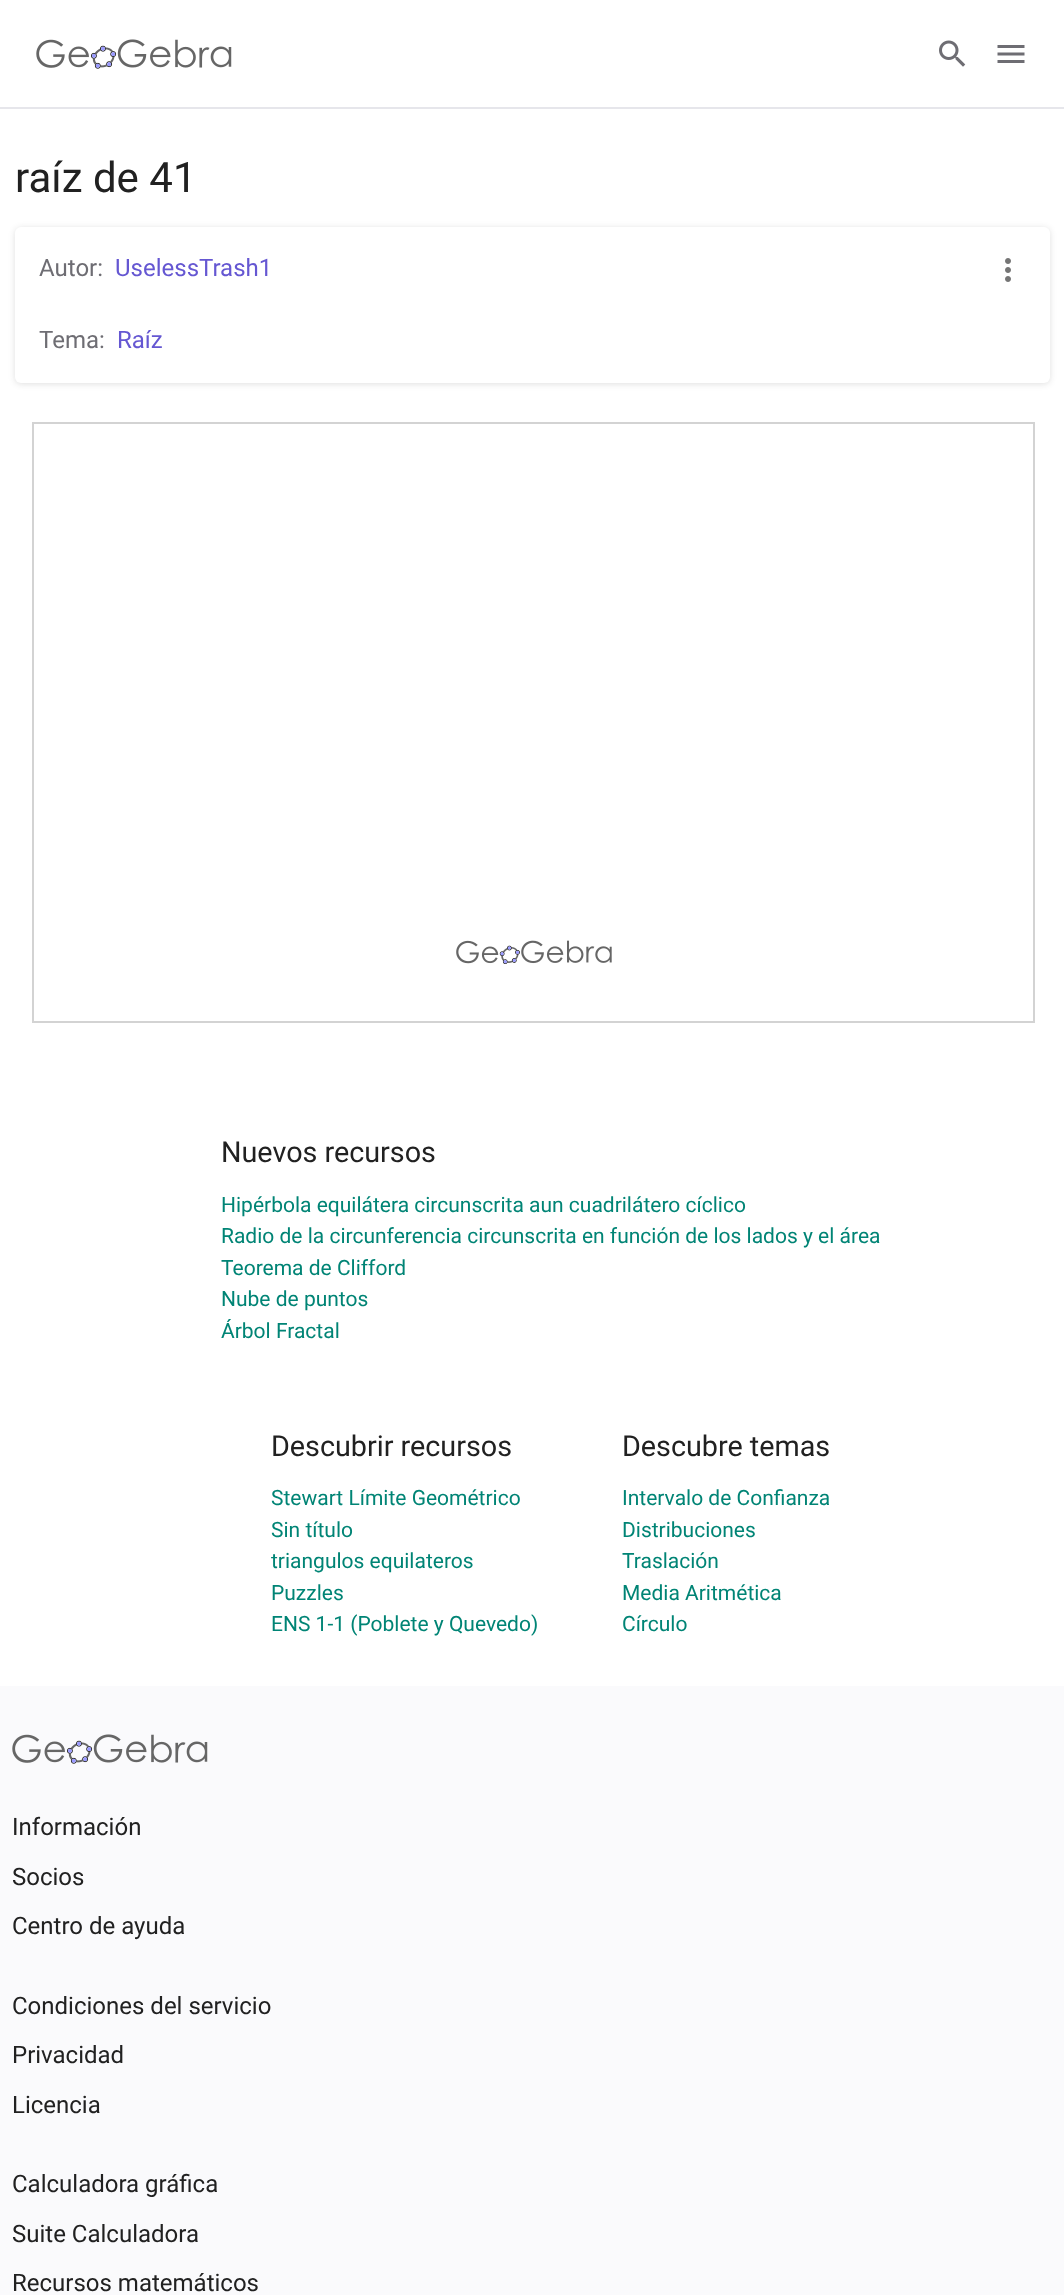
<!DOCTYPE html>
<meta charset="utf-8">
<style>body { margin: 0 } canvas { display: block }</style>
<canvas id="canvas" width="1064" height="2295"></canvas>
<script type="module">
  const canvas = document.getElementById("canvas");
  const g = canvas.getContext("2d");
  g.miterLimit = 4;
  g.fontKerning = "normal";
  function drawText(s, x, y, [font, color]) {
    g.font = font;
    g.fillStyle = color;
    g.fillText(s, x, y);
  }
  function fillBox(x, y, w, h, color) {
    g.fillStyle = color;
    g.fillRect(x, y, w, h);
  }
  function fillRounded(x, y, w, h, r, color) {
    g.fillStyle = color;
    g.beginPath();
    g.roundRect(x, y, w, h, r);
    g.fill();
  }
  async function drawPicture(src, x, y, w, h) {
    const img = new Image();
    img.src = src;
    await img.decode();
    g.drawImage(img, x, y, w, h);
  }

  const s1 = ["42px Roboto", "#212121"];
  const s2 = ["24px Roboto", "#6E6D73"];
  const s3 = ["24px Roboto", "#6557D2"];
  const s4 = ["28.75px Roboto", "#212121"];
  const s5 = ["21px Roboto", "#008475"];
  const s6 = ["24px Roboto", "#212121"];

  fillBox(0, 0, 1064, 2295, "#FFFFFF");
  fillBox(0, 107, 1064, 2, "#E6E6EB");
  await drawPicture("pic1.png", 36, 39, 196, 30);
  await drawPicture("pic2.png", 939, 40, 27, 27);
  await drawPicture("pic3.png", 997, 45, 28, 18);
  drawText("raíz de 41", 15, 192, s1);
  g.fillStyle = "rgba(28, 28, 31, 0.14)";
  g.filter = "blur(3px)";
  g.beginPath();
  g.roundRect(15, 228, 1035, 156, 6);
  g.fill();
  g.filter = "none";
  fillRounded(15, 227, 1035, 156, 6, "#FFFFFF");
  drawText("Autor:", 39, 276, s2);
  drawText("UselessTrash1", 115, 276, s3);
  drawText("Tema:", 39, 348, s2);
  drawText("Raíz", 117, 348, s3);
  await drawPicture("pic4.png", 1005, 258, 6, 24);
  await drawPicture("pic5.png", 456, 940, 156, 24);
  g.strokeStyle = "#D3D3D3";
  g.lineWidth = 2;
  g.strokeRect(33, 423, 1001, 599);
  drawText("Nuevos recursos", 221, 1162, s4);
  drawText("Hipérbola equilátera circunscrita aun cuadrilátero cíclico", 221, 1212, s5);
  drawText("Radio de la circunferencia circunscrita en función de los lados y el área", 221, 1243, s5);
  drawText("Teorema de Clifford", 221, 1275, s5);
  drawText("Nube de puntos", 221, 1306, s5);
  drawText("Árbol Fractal", 221, 1338, s5);
  drawText("Descubrir recursos", 271, 1456, s4);
  drawText("Stewart Límite Geométrico", 271, 1505, s5);
  drawText("Sin título", 271, 1537, s5);
  drawText("triangulos equilateros", 271, 1568, s5);
  drawText("Puzzles", 271, 1600, s5);
  drawText("ENS 1-1 (Poblete y Quevedo)", 271, 1631, s5);
  drawText("Descubre temas", 622, 1456, s4);
  drawText("Intervalo de Confianza", 622, 1505, s5);
  drawText("Distribuciones", 622, 1537, s5);
  drawText("Traslación", 622, 1568, s5);
  drawText("Media Aritmética", 622, 1600, s5);
  drawText("Círculo", 622, 1631, s5);
  fillBox(0, 1686, 1064, 609, "#FAFAFC");
  await drawPicture("pic6.png", 12, 1734, 196, 30);
  drawText("Información", 12, 1835, s6);
  drawText("Socios", 12, 1885, s6);
  drawText("Centro de ayuda", 12, 1934, s6);
  drawText("Condiciones del servicio", 12, 2014, s6);
  drawText("Privacidad", 12, 2063, s6);
  drawText("Licencia", 12, 2113, s6);
  drawText("Calculadora gráfica", 12, 2192, s6);
  drawText("Suite Calculadora", 12, 2242, s6);
  drawText("Recursos matemáticos", 12, 2291, s6);
</script>
